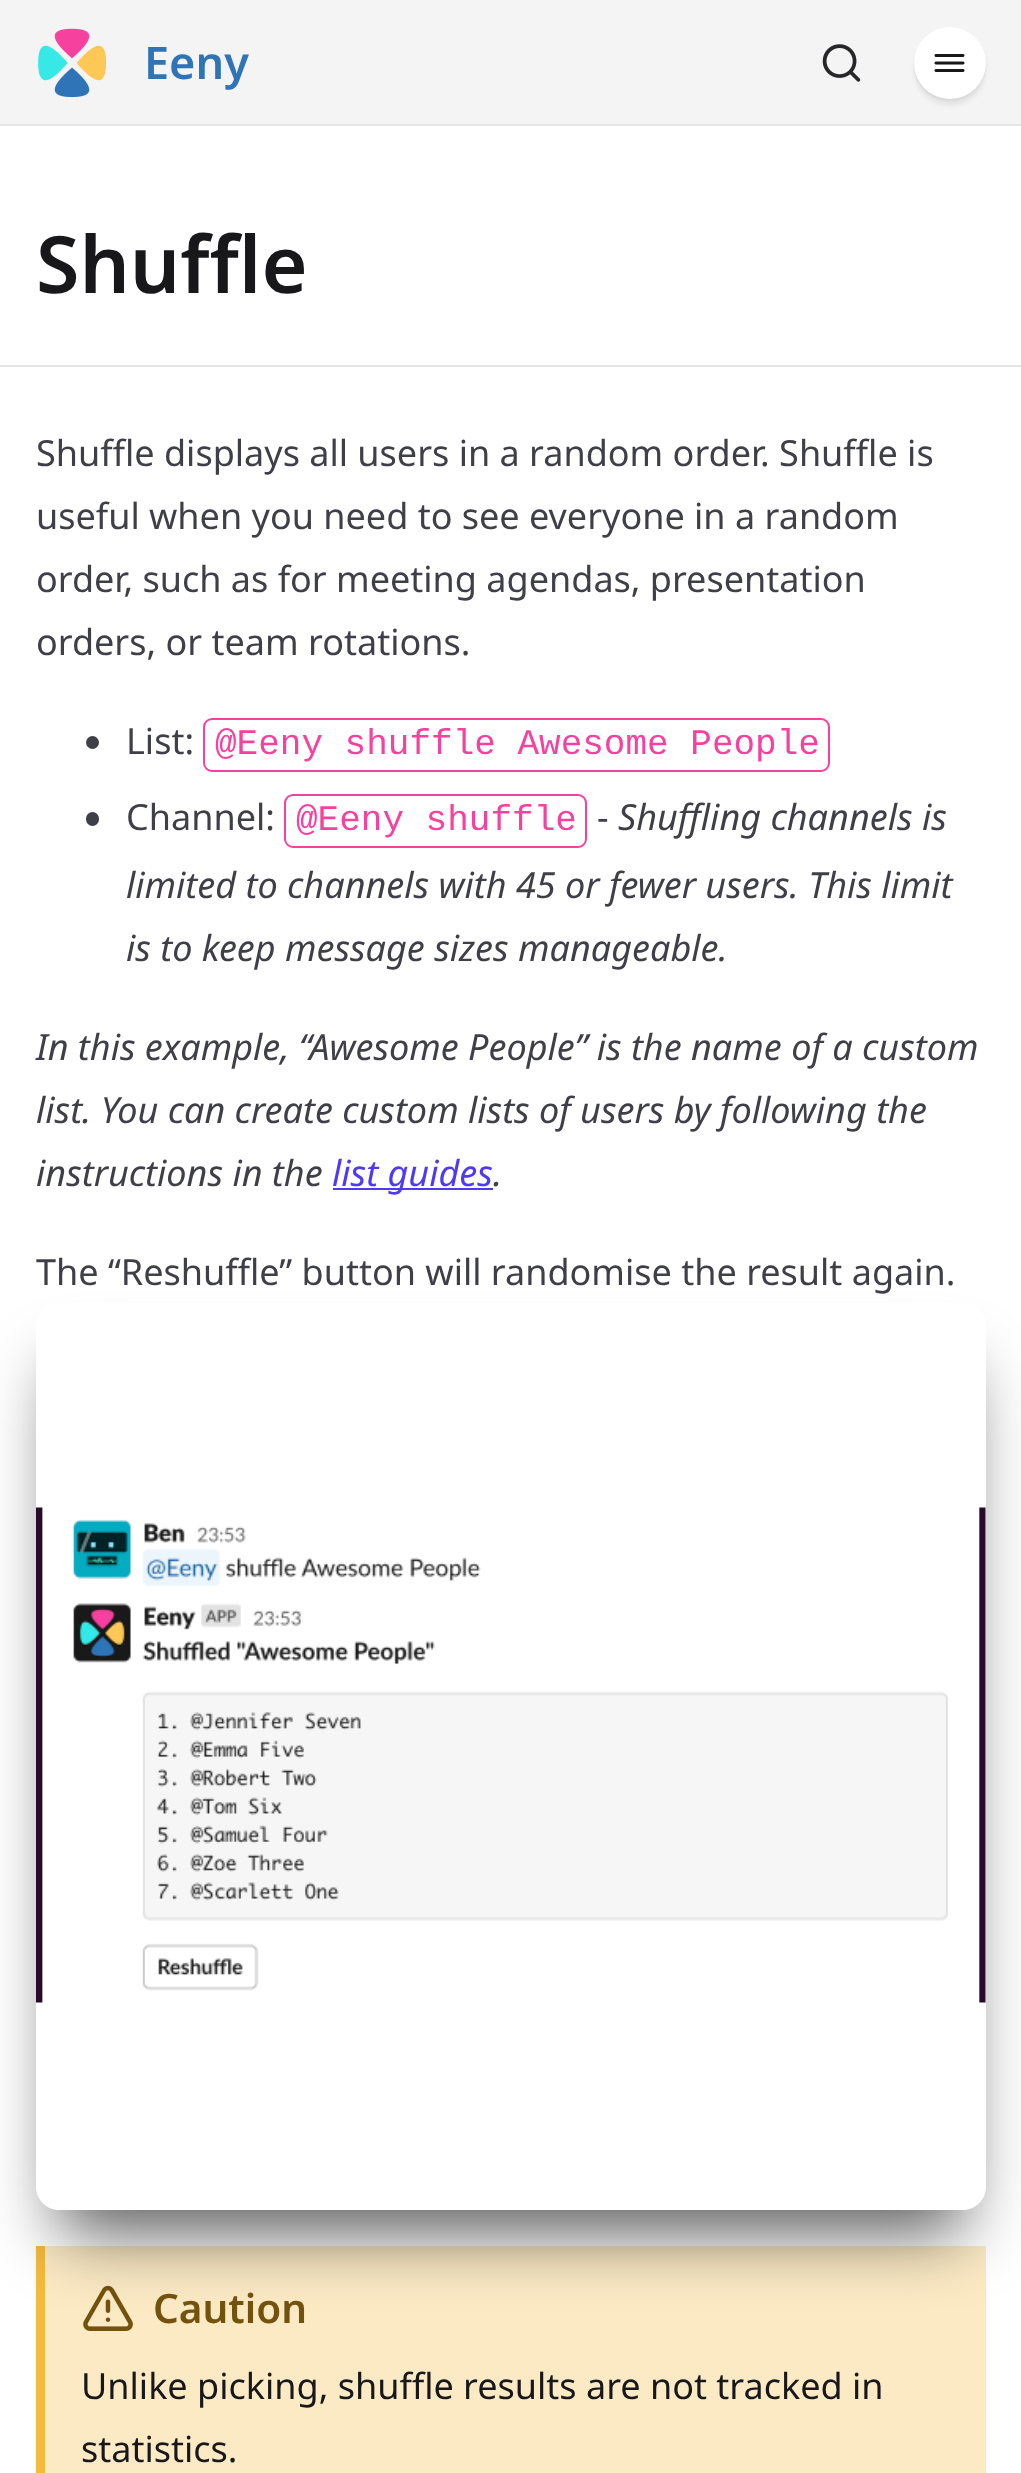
<!DOCTYPE html>
<meta charset="utf-8">
<style>body { margin: 0 } canvas { display: block }</style>
<canvas id="canvas" width="1021" height="2473"></canvas>
<script type="module">
  const canvas = document.getElementById("canvas");
  const g = canvas.getContext("2d");
  g.miterLimit = 4;
  g.fontKerning = "normal";
  function drawText(s, x, y, [font, color]) {
    g.font = font;
    g.fillStyle = color;
    g.fillText(s, x, y);
  }
  function fillBox(x, y, w, h, color) {
    g.fillStyle = color;
    g.fillRect(x, y, w, h);
  }
  function fillRounded(x, y, w, h, r, color) {
    g.fillStyle = color;
    g.beginPath();
    g.roundRect(x, y, w, h, r);
    g.fill();
  }
  async function drawPicture(src, x, y, w, h) {
    const img = new Image();
    img.src = src;
    await img.decode();
    g.drawImage(img, x, y, w, h);
  }

  const s1 = ["600 45px Noto Sans", "#2F74B7"];
  const s2 = ["600 79px Noto Sans", "#18181B"];
  const s3 = ["36px Noto Sans", "#3F3F47"];
  const s4 = ["36px Liberation Mono", "#F6419E"];
  const s5 = ["italic 36px Noto Sans", "#3F3F47"];
  const s6 = ["italic 36px Noto Sans", "#4F39F6"];
  const s7 = ["600 40.5px Noto Sans", "#73520D"];
  const s8 = ["36px Noto Sans", "#18181B"];

  fillBox(0, 0, 1021, 2473, "#FFFFFF");
  fillBox(0, 0, 1021, 124, "#F4F4F5");
  fillBox(0, 124, 1021, 2, "#E4E4E7");
  await drawPicture("pic1.png", 38, 28, 69, 70);
  drawText("Eeny", 144, 79, s1);
  await drawPicture("pic2.png", 822, 44, 39, 38);
  g.fillStyle = "rgba(0, 0, 0, 0.06)";
  g.filter = "blur(1px)";
  g.beginPath();
  g.roundRect(914, 29, 72, 72, 36);
  g.fill();
  g.filter = "none";
  g.filter = "blur(2px)";
  g.beginPath();
  g.roundRect(914, 34, 72, 72, 36);
  g.fill();
  g.filter = "none";
  g.fillStyle = "#FFFFFF";
  g.beginPath();
  g.arc(950, 63, 36, 0, Math.PI * 2);
  g.fill();
  await drawPicture("pic3.png", 934, 54, 31, 18);
  drawText("Shuffle", 36, 293, s2);
  fillBox(0, 365, 1021, 2, "#E4E4E7");
  drawText("Shuffle displays all users in a random order. Shuffle is", 36, 466, s3);
  drawText("useful when you need to see everyone in a random", 36, 529, s3);
  drawText("order, such as for meeting agendas, presentation", 36, 592, s3);
  drawText("orders, or team rotations.", 36, 655, s3);
  g.beginPath();
  g.arc(92.5, 742.5, 6.5, 0, Math.PI * 2);
  g.fill();
  drawText("List:", 126, 754, s3);
  g.beginPath();
  g.roundRect(204, 719, 625, 52, 8);
  g.strokeStyle = "#F6419E";
  g.lineWidth = 2;
  g.stroke();
  drawText("@Eeny shuffle Awesome People", 215, 754, s4);
  fillRounded(86, 812, 13, 14, 6.5, "#3F3F47");
  drawText("Channel:", 126, 830, s3);
  g.beginPath();
  g.roundRect(285, 795, 301, 52, 8);
  g.stroke();
  drawText("@Eeny shuffle", 296, 830, s4);
  drawText("-", 597, 830, s3);
  drawText("Shuffling channels is", 618, 830, s5);
  drawText("limited to channels with 45 or fewer users. This limit", 126, 898, s5);
  drawText("is to keep message sizes manageable.", 126, 961, s5);
  drawText("In this example, “Awesome People” is the name of a custom", 36, 1060, s5);
  drawText("list. You can create custom lists of users by following the", 36, 1123, s5);
  drawText("instructions in the", 36, 1186, s5);
  fillBox(333, 1188, 160, 2, "#4F39F6");
  drawText("list guides", 332, 1186, s6);
  drawText(".", 493, 1186, s5);
  drawText("The “Reshuffle” button will randomise the result again.", 36, 1285, s3);
  fillBox(45, 2246, 941, 227, "#FCEAC5");
  fillBox(36, 2246, 9, 227, "#F5BB3D");
  await drawPicture("pic5.png", 83, 2285, 50, 46);
  g.save();
  g.beginPath();
  g.moveTo(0, 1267);
  g.lineTo(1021, 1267);
  g.lineTo(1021, 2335);
  g.lineTo(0, 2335);
  g.closePath();
  g.moveTo(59, 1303);
  g.lineTo(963, 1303);
  g.bezierCurveTo(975.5, 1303, 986, 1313.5, 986, 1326);
  g.lineTo(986, 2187);
  g.bezierCurveTo(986, 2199.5, 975.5, 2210, 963, 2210);
  g.lineTo(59, 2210);
  g.bezierCurveTo(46.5, 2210, 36, 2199.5, 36, 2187);
  g.lineTo(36, 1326);
  g.bezierCurveTo(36, 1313.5, 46.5, 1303, 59, 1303);
  g.closePath();
  g.clip("evenodd");
  g.fillStyle = "rgba(0, 0, 0, 0.65)";
  g.filter = "blur(34px)";
  g.beginPath();
  g.rect(59, 1370, 904, 862);
  g.fill();
  g.filter = "none";
  g.restore();
  await drawPicture("pic4.png", 36, 1507, 950, 496);
  drawText("Caution", 153, 2323, s7);
  drawText("Unlike picking, shuffle results are not tracked in", 81, 2399, s8);
  drawText("statistics.", 81, 2462, s8);
</script>
